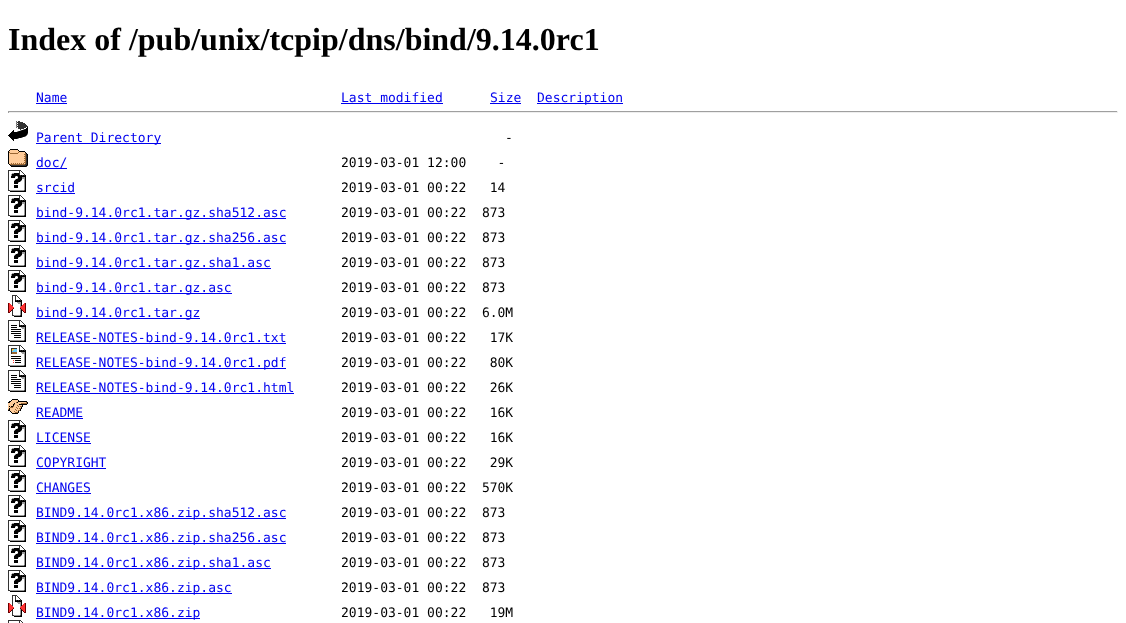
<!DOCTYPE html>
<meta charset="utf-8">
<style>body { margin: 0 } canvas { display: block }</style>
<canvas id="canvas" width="1126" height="623"></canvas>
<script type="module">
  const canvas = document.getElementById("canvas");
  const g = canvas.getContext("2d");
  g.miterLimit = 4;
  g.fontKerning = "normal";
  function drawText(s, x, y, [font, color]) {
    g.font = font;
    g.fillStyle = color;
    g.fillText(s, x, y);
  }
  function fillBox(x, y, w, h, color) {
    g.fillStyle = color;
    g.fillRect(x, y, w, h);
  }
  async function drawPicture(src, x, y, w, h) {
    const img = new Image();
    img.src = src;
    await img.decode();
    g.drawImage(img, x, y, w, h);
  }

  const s1 = ["bold 32px Liberation Serif", "#000000"];
  const s2 = ["13px DejaVu Sans Mono", "#0000EE"];
  const s3 = ["13px DejaVu Sans Mono", "#000000"];

  fillBox(0, 0, 1126, 623, "#FFFFFF");
  drawText("Index of /pub/unix/tcpip/dns/bind/9.14.0rc1", 8, 50, s1);
  drawText("Name", 36, 102, s2);
  fillBox(36, 103, 31, 1, "#0000EE");
  drawText("Last modified", 341, 102, s2);
  fillBox(341, 103, 102, 1, "#0000EE");
  drawText("Size", 490, 102, s2);
  fillBox(490, 103, 31, 1, "#0000EE");
  fillBox(537, 103, 86, 1, "#0000EE");
  drawText("Description", 537, 102, s2);
  fillBox(8, 111, 1110, 1, "#9F9F9F");
  fillBox(1117, 111, 1, 2, "#EEEEEE");
  fillBox(8, 112, 1110, 1, "#EEEEEE");
  fillBox(8, 111, 1, 2, "#9F9F9F");
  await drawPicture("pic1.png", 8, 121, 20, 20);
  fillBox(36, 143, 125, 1, "#0000EE");
  drawText("Parent Directory", 36, 142, s2);
  drawText("-", 505, 142, s3);
  await drawPicture("pic2.png", 8, 149, 20, 18);
  fillBox(36, 168, 31, 1, "#0000EE");
  drawText("doc/", 36, 167, s2);
  drawText("2019-03-01 12:00    -", 341, 167, s3);
  await drawPicture("pic3.png", 8, 170, 18, 22);
  drawText("srcid", 36, 192, s2);
  fillBox(36, 193, 39, 1, "#0000EE");
  drawText("2019-03-01 00:22   14", 341, 192, s3);
  await drawPicture("pic3.png", 8, 195, 18, 22);
  fillBox(36, 218, 250, 1, "#0000EE");
  drawText("bind-9.14.0rc1.tar.gz.sha512.asc", 36, 217, s2);
  drawText("2019-03-01 00:22  873", 341, 217, s3);
  await drawPicture("pic3.png", 8, 220, 18, 22);
  fillBox(36, 243, 250, 1, "#0000EE");
  drawText("bind-9.14.0rc1.tar.gz.sha256.asc", 36, 242, s2);
  drawText("2019-03-01 00:22  873", 341, 242, s3);
  await drawPicture("pic3.png", 8, 245, 18, 22);
  fillBox(36, 268, 235, 1, "#0000EE");
  drawText("bind-9.14.0rc1.tar.gz.sha1.asc", 36, 267, s2);
  drawText("2019-03-01 00:22  873", 341, 267, s3);
  await drawPicture("pic3.png", 8, 270, 18, 22);
  fillBox(36, 293, 196, 1, "#0000EE");
  drawText("bind-9.14.0rc1.tar.gz.asc", 36, 292, s2);
  drawText("2019-03-01 00:22  873", 341, 292, s3);
  await drawPicture("pic4.png", 8, 295, 18, 22);
  fillBox(36, 318, 164, 1, "#0000EE");
  drawText("bind-9.14.0rc1.tar.gz", 36, 317, s2);
  drawText("2019-03-01 00:22  6.0M", 341, 317, s3);
  await drawPicture("pic5.png", 8, 320, 18, 22);
  drawText("RELEASE-NOTES-bind-9.14.0rc1.txt", 36, 342, s2);
  fillBox(36, 343, 250, 1, "#0000EE");
  drawText("2019-03-01 00:22   17K", 341, 342, s3);
  await drawPicture("pic6.png", 8, 345, 18, 22);
  fillBox(36, 368, 250, 1, "#0000EE");
  drawText("RELEASE-NOTES-bind-9.14.0rc1.pdf", 36, 367, s2);
  drawText("2019-03-01 00:22   80K", 341, 367, s3);
  await drawPicture("pic5.png", 8, 370, 18, 22);
  drawText("RELEASE-NOTES-bind-9.14.0rc1.html", 36, 392, s2);
  fillBox(36, 393, 258, 1, "#0000EE");
  drawText("2019-03-01 00:22   26K", 341, 392, s3);
  await drawPicture("pic7.png", 8, 399, 20, 15);
  drawText("README", 36, 417, s2);
  fillBox(36, 418, 47, 1, "#0000EE");
  drawText("2019-03-01 00:22   16K", 341, 417, s3);
  await drawPicture("pic3.png", 8, 420, 18, 22);
  drawText("LICENSE", 36, 442, s2);
  fillBox(36, 443, 55, 1, "#0000EE");
  drawText("2019-03-01 00:22   16K", 341, 442, s3);
  await drawPicture("pic3.png", 8, 445, 18, 22);
  drawText("COPYRIGHT", 36, 467, s2);
  fillBox(36, 468, 70, 1, "#0000EE");
  drawText("2019-03-01 00:22   29K", 341, 467, s3);
  await drawPicture("pic3.png", 8, 470, 18, 22);
  drawText("CHANGES", 36, 492, s2);
  fillBox(36, 493, 55, 1, "#0000EE");
  drawText("2019-03-01 00:22  570K", 341, 492, s3);
  await drawPicture("pic3.png", 8, 495, 18, 22);
  fillBox(36, 518, 250, 1, "#0000EE");
  drawText("BIND9.14.0rc1.x86.zip.sha512.asc", 36, 517, s2);
  drawText("2019-03-01 00:22  873", 341, 517, s3);
  await drawPicture("pic3.png", 8, 520, 18, 22);
  fillBox(36, 543, 250, 1, "#0000EE");
  drawText("BIND9.14.0rc1.x86.zip.sha256.asc", 36, 542, s2);
  drawText("2019-03-01 00:22  873", 341, 542, s3);
  await drawPicture("pic3.png", 8, 545, 18, 22);
  fillBox(36, 568, 235, 1, "#0000EE");
  drawText("BIND9.14.0rc1.x86.zip.sha1.asc", 36, 567, s2);
  drawText("2019-03-01 00:22  873", 341, 567, s3);
  await drawPicture("pic3.png", 8, 570, 18, 22);
  fillBox(36, 593, 196, 1, "#0000EE");
  drawText("BIND9.14.0rc1.x86.zip.asc", 36, 592, s2);
  drawText("2019-03-01 00:22  873", 341, 592, s3);
  await drawPicture("pic4.png", 8, 595, 18, 22);
  fillBox(36, 618, 164, 1, "#0000EE");
  drawText("BIND9.14.0rc1.x86.zip", 36, 617, s2);
  drawText("2019-03-01 00:22   19M", 341, 617, s3);
  await drawPicture("pic8.png", 8, 620, 15, 3);
</script>
